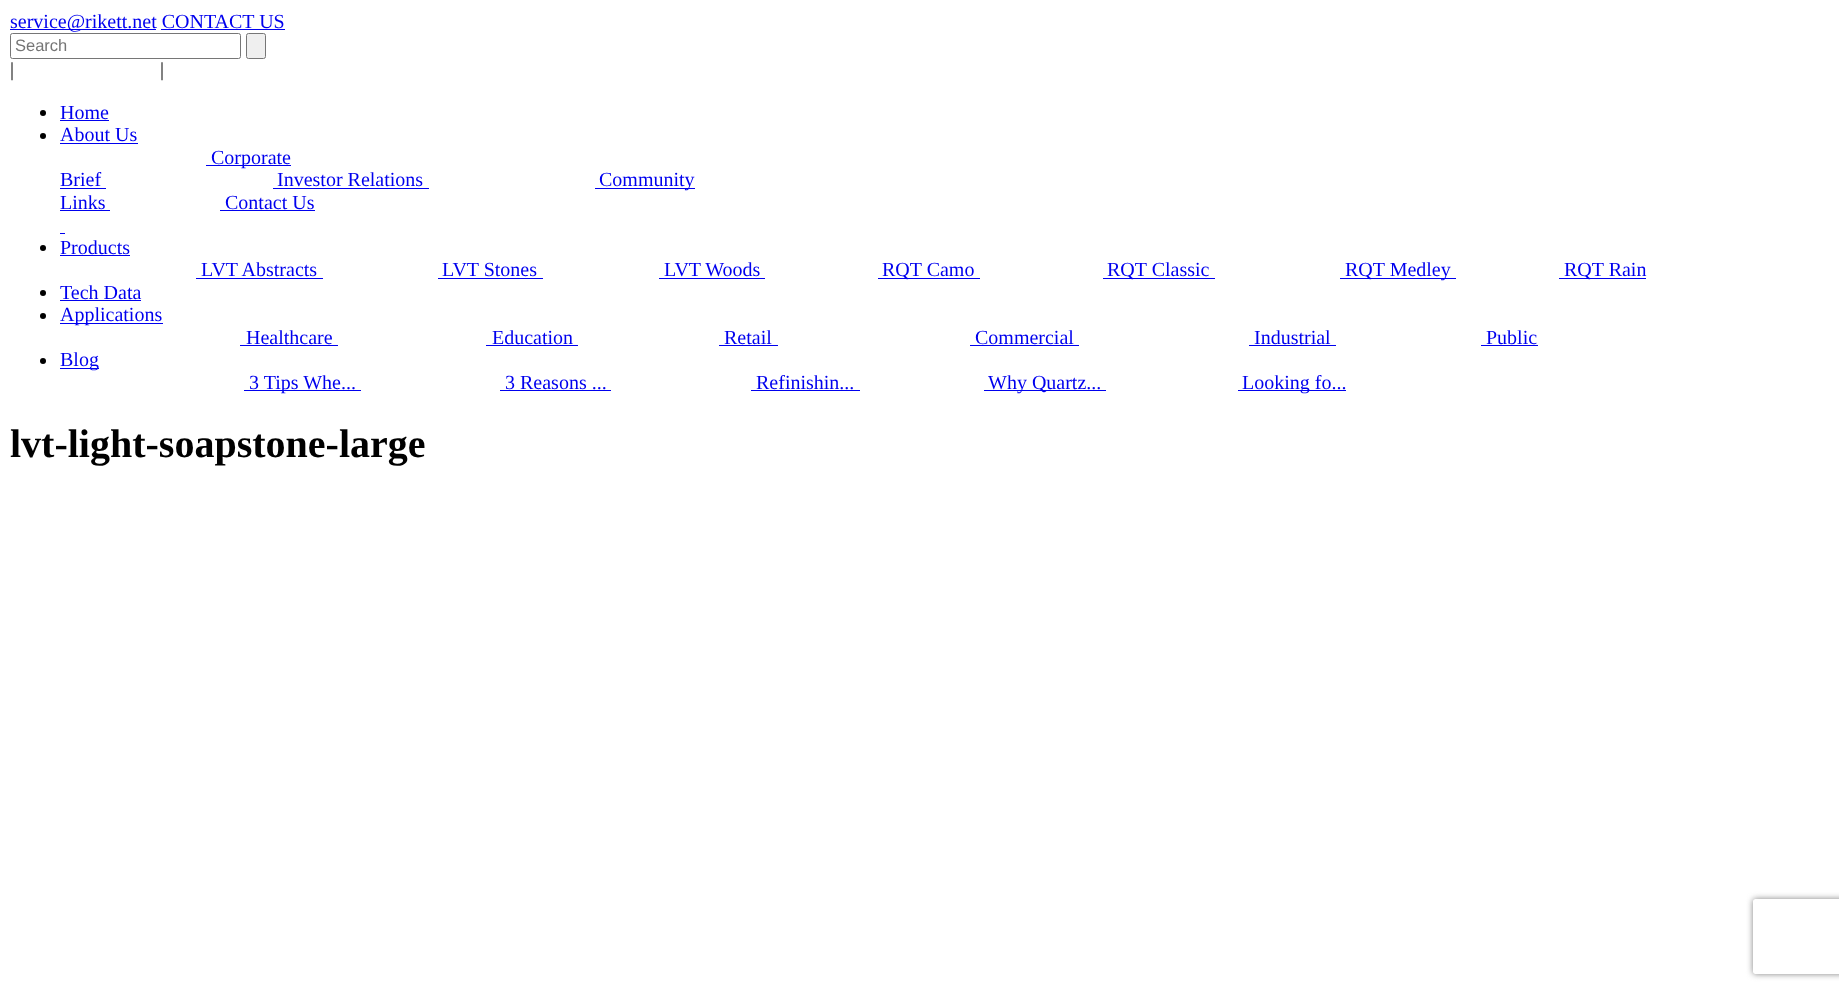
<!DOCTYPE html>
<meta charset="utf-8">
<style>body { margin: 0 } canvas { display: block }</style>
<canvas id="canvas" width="1839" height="991"></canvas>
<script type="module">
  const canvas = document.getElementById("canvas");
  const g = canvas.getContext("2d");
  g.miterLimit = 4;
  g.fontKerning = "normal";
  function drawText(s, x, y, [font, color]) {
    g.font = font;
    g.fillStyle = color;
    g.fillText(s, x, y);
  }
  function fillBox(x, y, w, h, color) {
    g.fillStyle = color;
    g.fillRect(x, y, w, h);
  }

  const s1 = ["20px Liberation Serif", "#0000EE"];
  const s2 = ["16.5px Liberation Sans", "#757575"];
  const s3 = ["20px Liberation Serif", "#000000"];
  const s4 = ["bold 40px Liberation Serif", "#000000"];

  fillBox(0, 0, 1839, 991, "#FFFFFF");
  fillBox(10, 29, 146, 1, "#0000EE");
  drawText("service@rikett.net CONTACT US", 10, 28, s1);
  fillBox(161, 29, 124, 1, "#0000EE");
  g.beginPath();
  g.roundRect(10.5, 33.5, 230, 25, 2);
  g.strokeStyle = "#767676";
  g.stroke();
  drawText("Search", 15, 51, s2);
  g.fillStyle = "#EFEFEF";
  g.beginPath();
  g.roundRect(246.5, 33.5, 19, 25, 2);
  g.fill();
  g.stroke();
  drawText("|", 10, 76, s3);
  drawText("|", 160, 76, s3);
  g.beginPath();
  g.arc(43, 113, 3, 0, Math.PI * 2);
  g.fill();
  drawText("Home", 60, 119, s1);
  fillBox(60, 120, 49, 1, "#0000EE");
  g.fillStyle = "#000000";
  g.beginPath();
  g.arc(43, 136, 3, 0, Math.PI * 2);
  g.fill();
  drawText("About Us", 60, 141, s1);
  fillBox(60, 143, 78, 1, "#0000EE");
  fillBox(206, 165, 85, 1, "#0000EE");
  drawText("Corporate", 211, 164, s1);
  drawText("Brief", 60, 186, s1);
  fillBox(60, 188, 46, 1, "#0000EE");
  drawText("Investor Relations", 277, 186, s1);
  fillBox(273, 188, 156, 1, "#0000EE");
  fillBox(595, 188, 100, 1, "#0000EE");
  drawText("Community", 599, 186, s1);
  drawText("Links", 60, 209, s1);
  fillBox(60, 210, 50, 1, "#0000EE");
  drawText("Contact Us", 225, 209, s1);
  fillBox(220, 210, 95, 1, "#0000EE");
  fillBox(60, 233, 5, 1, "#0000EE");
  g.fillStyle = "#000000";
  g.beginPath();
  g.arc(43, 248, 3, 0, Math.PI * 2);
  g.fill();
  drawText("Products", 60, 254, s1);
  fillBox(60, 255, 70, 1, "#0000EE");
  drawText("LVT Abstracts", 201, 276, s1);
  fillBox(196, 278, 127, 1, "#0000EE");
  drawText("LVT Stones", 442, 276, s1);
  fillBox(438, 278, 105, 1, "#0000EE");
  drawText("LVT Woods", 664, 276, s1);
  fillBox(659, 278, 106, 1, "#0000EE");
  fillBox(878, 278, 102, 1, "#0000EE");
  drawText("RQT Camo", 882, 276, s1);
  fillBox(1103, 278, 112, 1, "#0000EE");
  drawText("RQT Classic", 1107, 276, s1);
  fillBox(1340, 278, 116, 1, "#0000EE");
  drawText("RQT Medley", 1345, 276, s1);
  fillBox(1559, 278, 87, 1, "#0000EE");
  drawText("RQT Rain", 1564, 276, s1);
  g.fillStyle = "#000000";
  g.beginPath();
  g.arc(43, 293, 3, 0, Math.PI * 2);
  g.fill();
  drawText("Tech Data", 60, 299, s1);
  fillBox(60, 300, 81, 1, "#0000EE");
  g.fillStyle = "#000000";
  g.beginPath();
  g.arc(43, 316, 3, 0, Math.PI * 2);
  g.fill();
  fillBox(60, 323, 103, 1, "#0000EE");
  drawText("Applications", 60, 321, s1);
  drawText("Healthcare", 246, 344, s1);
  fillBox(240, 345, 98, 1, "#0000EE");
  drawText("Education", 492, 344, s1);
  fillBox(486, 345, 92, 1, "#0000EE");
  drawText("Retail", 724, 344, s1);
  fillBox(719, 345, 59, 1, "#0000EE");
  drawText("Commercial", 975, 344, s1);
  fillBox(970, 345, 109, 1, "#0000EE");
  drawText("Industrial", 1254, 344, s1);
  fillBox(1249, 345, 87, 1, "#0000EE");
  drawText("Public", 1486, 344, s1);
  fillBox(1481, 345, 57, 1, "#0000EE");
  g.fillStyle = "#000000";
  g.beginPath();
  g.arc(43, 361, 3, 0, Math.PI * 2);
  g.fill();
  fillBox(60, 368, 39, 1, "#0000EE");
  drawText("Blog", 60, 366, s1);
  fillBox(244, 390, 117, 1, "#0000EE");
  drawText("3 Tips Whe...", 249, 389, s1);
  drawText("3 Reasons ...", 505, 389, s1);
  fillBox(500, 390, 111, 1, "#0000EE");
  drawText("Refinishin...", 756, 389, s1);
  fillBox(751, 390, 109, 1, "#0000EE");
  fillBox(984, 390, 122, 1, "#0000EE");
  drawText("Why Quartz...", 988, 389, s1);
  fillBox(1238, 390, 108, 1, "#0000EE");
  drawText("Looking fo...", 1242, 389, s1);
  drawText("lvt-light-soapstone-large", 10, 457, s4);
  g.save();
  g.beginPath();
  g.moveTo(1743, 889);
  g.lineTo(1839, 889);
  g.lineTo(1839, 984);
  g.lineTo(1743, 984);
  g.closePath();
  g.moveTo(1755.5, 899);
  g.lineTo(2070.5, 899);
  g.bezierCurveTo(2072, 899, 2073, 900, 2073, 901.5);
  g.lineTo(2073, 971.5);
  g.bezierCurveTo(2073, 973, 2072, 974, 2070.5, 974);
  g.lineTo(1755.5, 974);
  g.bezierCurveTo(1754, 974, 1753, 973, 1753, 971.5);
  g.lineTo(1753, 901.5);
  g.bezierCurveTo(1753, 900, 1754, 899, 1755.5, 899);
  g.closePath();
  g.clip("evenodd");
  g.fillStyle = "#808080";
  g.filter = "blur(3px)";
  g.beginPath();
  g.roundRect(1753, 899, 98, 75, 2.5);
  g.fill();
  g.filter = "none";
  g.restore();
</script>
